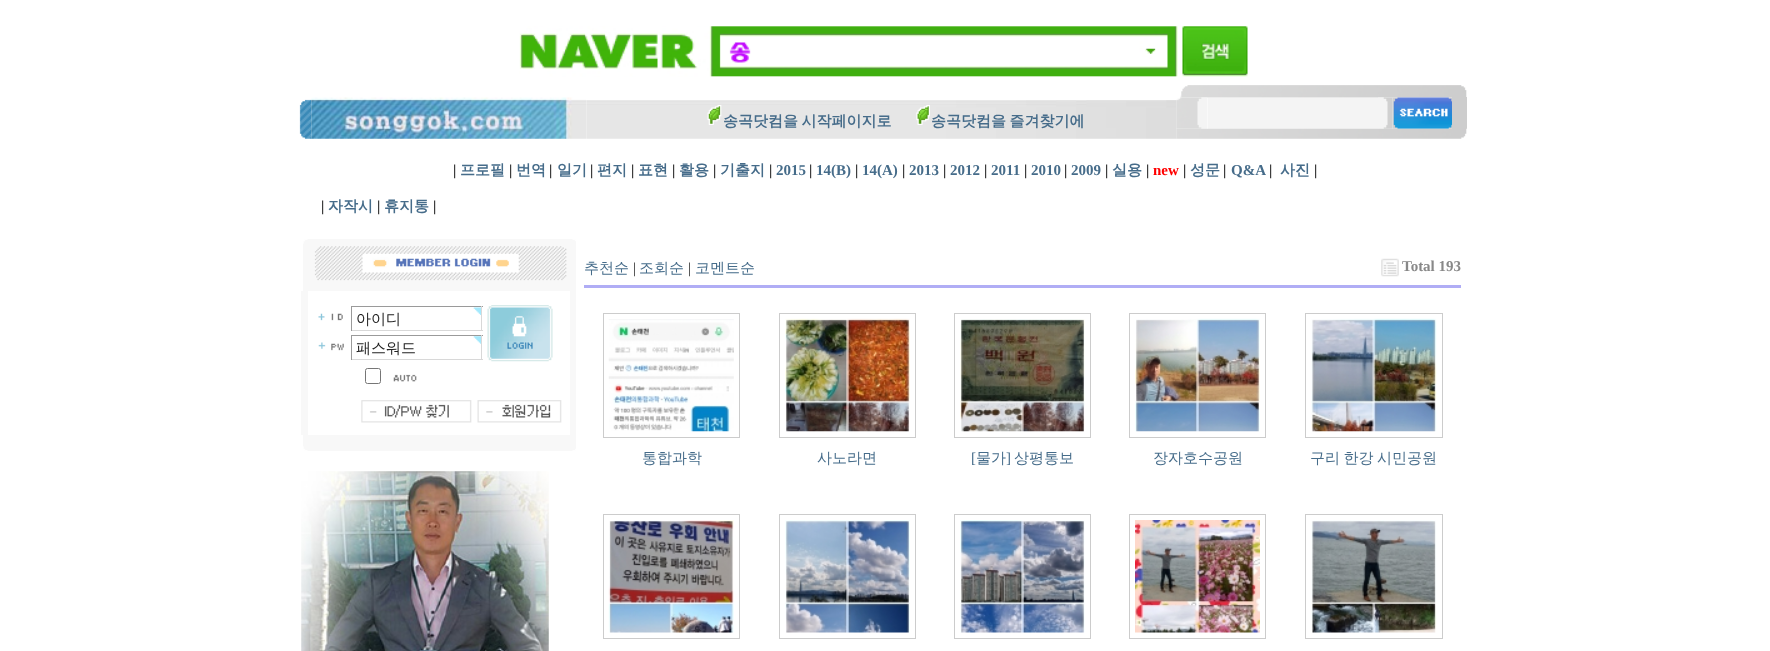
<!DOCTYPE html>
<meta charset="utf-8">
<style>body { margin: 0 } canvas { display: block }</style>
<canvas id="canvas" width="1770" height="651"></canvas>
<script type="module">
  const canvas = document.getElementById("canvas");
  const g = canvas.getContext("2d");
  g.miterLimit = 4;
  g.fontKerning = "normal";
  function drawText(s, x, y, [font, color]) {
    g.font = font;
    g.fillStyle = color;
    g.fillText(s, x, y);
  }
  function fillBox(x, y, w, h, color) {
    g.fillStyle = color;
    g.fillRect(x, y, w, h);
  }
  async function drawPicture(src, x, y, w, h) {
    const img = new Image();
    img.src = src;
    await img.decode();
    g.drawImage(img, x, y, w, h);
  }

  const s1 = ["bold 15px WenQuanYi Zen Hei", "#466C8A"];
  const s2 = ["bold 15px Liberation Serif", "#222222"];
  const s3 = ["bold 15px Liberation Serif", "#466C8A"];
  const s4 = ["bold 15px Liberation Serif", "#FF0000"];
  const s5 = ["500 15px WenQuanYi Zen Hei", "#222222"];
  const s6 = ["500 15px WenQuanYi Zen Hei", "#466C8A"];
  const s7 = ["15px Liberation Serif", "#222222"];
  const s8 = ["bold 15px Liberation Serif", "#888888"];
  const s9 = ["15px Liberation Serif", "#466C8A"];

  fillBox(0, 0, 1770, 651, "#FFFFFF");
  await drawPicture("pic1.png", 519, 26, 729, 51);
  await drawPicture("pic2.png", 1180, 85, 287, 13);
  await drawPicture("pic3.png", 299, 99, 13, 40);
  await drawPicture("pic4.png", 311, 97, 275, 42);
  await drawPicture("pic5.png", 586, 100, 591, 39);
  await drawPicture("pic6.png", 707, 105, 15, 20);
  g.wordSpacing = "-1px";
  drawText("송곡닷컴을 시작페이지로", 723, 126, s1);
  await drawPicture("pic7.png", 916, 105, 14, 20);
  drawText("송곡닷컴을 즐겨찾기에", 931, 126, s1);
  await drawPicture("pic8.png", 1176, 97, 32, 32);
  fillBox(1208, 98, 170, 31, "#F4F4F4");
  await drawPicture("pic9.png", 1378, 97, 15, 32);
  await drawPicture("pic10.png", 1392, 97, 60, 32);
  fillBox(1452, 97, 15, 32, "#CDCDCD");
  await drawPicture("pic11.png", 1176, 128, 291, 11);
  g.wordSpacing = "0px";
  drawText("|", 453, 175, s2);
  drawText("프로필", 460, 175, s1);
  drawText("|", 509, 175, s2);
  drawText("번역", 516, 175, s1);
  drawText("|", 549, 175, s2);
  drawText("일기", 557, 175, s1);
  drawText("|", 590, 175, s2);
  drawText("편지", 597, 175, s1);
  drawText("|", 631, 175, s2);
  drawText("표현", 638, 175, s1);
  drawText("|", 672, 175, s2);
  drawText("활용", 679, 175, s1);
  drawText("|", 713, 175, s2);
  drawText("기출지", 720, 175, s1);
  drawText("|", 769, 175, s2);
  drawText("2015", 776, 175, s3);
  drawText("|", 809, 175, s2);
  drawText("14(B)", 816, 175, s3);
  drawText("|", 855, 175, s2);
  drawText("14(A)", 862, 175, s3);
  drawText("|", 902, 175, s2);
  drawText("2013", 909, 175, s3);
  drawText("|", 943, 175, s2);
  drawText("2012", 950, 175, s3);
  drawText("|", 984, 175, s2);
  drawText("2011", 991, 175, s3);
  drawText("|", 1024, 175, s2);
  drawText("2010", 1031, 175, s3);
  drawText("|", 1064, 175, s2);
  drawText("2009", 1071, 175, s3);
  drawText("|", 1105, 175, s2);
  drawText("실용", 1112, 175, s1);
  drawText("|", 1146, 175, s2);
  drawText("new", 1153, 175, s4);
  drawText("|", 1183, 175, s2);
  drawText("성문", 1190, 175, s1);
  drawText("|", 1223, 175, s2);
  drawText("Q&A", 1231, 175, s3);
  drawText("|", 1269, 175, s2);
  drawText("사진", 1280, 175, s1);
  drawText("|", 1314, 175, s2);
  drawText("|", 321, 211, s2);
  drawText("자작시", 328, 211, s1);
  drawText("|", 377, 211, s2);
  drawText("휴지통", 384, 211, s1);
  drawText("|", 433, 211, s2);
  await drawPicture("pic12.png", 303, 239, 273, 52);
  fillBox(301, 291, 7, 144, "#F8F8F8");
  await drawPicture("pic13.png", 318, 313, 25, 8);
  await drawPicture("pic14.png", 473, 307, 8, 8);
  fillBox(351, 306, 132, 1, "#9A9A9A");
  fillBox(481, 306, 1, 25, "#D8D8D8");
  fillBox(351, 330, 132, 1, "#D8D8D8");
  fillBox(351, 306, 1, 25, "#9A9A9A");
  drawText("아이디", 356, 324, s5);
  await drawPicture("pic15.png", 318, 342, 26, 9);
  await drawPicture("pic16.png", 473, 336, 8, 8);
  fillBox(351, 335, 132, 1, "#9A9A9A");
  fillBox(481, 335, 1, 25, "#D8D8D8");
  fillBox(351, 359, 132, 1, "#D8D8D8");
  fillBox(351, 335, 1, 25, "#9A9A9A");
  drawText("패스워드", 356, 353, s5);
  await drawPicture("pic17.png", 487, 305, 66, 57);
  g.beginPath();
  g.roundRect(365.5, 368.5, 15, 15, 2);
  g.strokeStyle = "#767676";
  g.stroke();
  await drawPicture("pic18.png", 393, 374, 24, 8);
  await drawPicture("pic19.png", 361, 400, 111, 23);
  await drawPicture("pic20.png", 477, 400, 85, 23);
  fillBox(570, 291, 6, 144, "#F8F8F8");
  await drawPicture("pic21.png", 303, 435, 273, 16);
  await drawPicture("pic22.png", 301, 471, 248, 180);
  drawText("추천순", 584, 273, s6);
  drawText("|", 633, 273, s7);
  drawText("조회순", 639, 273, s6);
  drawText("|", 688, 273, s7);
  drawText("코멘트순", 695, 273, s6);
  await drawPicture("pic23.png", 1381, 258, 18, 19);
  drawText("Total 193", 1402, 271, s8);
  fillBox(584, 285, 877, 3, "#B0ADF5");
  g.strokeStyle = "#CCCCCC";
  g.strokeRect(603.5, 313.5, 136, 124);
  await drawPicture("pic24.png", 608, 319, 126, 113);
  drawText("통합과학", 642, 463, s6);
  g.strokeRect(779.5, 313.5, 136, 124);
  await drawPicture("pic25.png", 785, 318, 125, 114);
  drawText("사노라면", 817, 463, s6);
  g.strokeRect(954.5, 313.5, 136, 124);
  await drawPicture("pic26.png", 960, 319, 125, 113);
  drawText("[", 971, 463, s9);
  drawText("물가", 976, 463, s6);
  drawText("]", 1006, 463, s9);
  drawText("상평통보", 1014, 463, s6);
  g.strokeRect(1129.5, 313.5, 136, 124);
  await drawPicture("pic27.png", 1135, 318, 125, 114);
  drawText("장자호수공원", 1153, 463, s6);
  g.strokeRect(1305.5, 313.5, 137, 124);
  await drawPicture("pic28.png", 1311, 318, 126, 114);
  g.wordSpacing = "-1px";
  drawText("구리 한강 시민공원", 1310, 463, s6);
  g.strokeRect(603.5, 514.5, 136, 124);
  await drawPicture("pic29.png", 608, 520, 126, 113);
  g.strokeRect(779.5, 514.5, 136, 124);
  await drawPicture("pic30.png", 785, 520, 125, 113);
  g.strokeRect(954.5, 514.5, 136, 124);
  await drawPicture("pic31.png", 960, 520, 125, 113);
  g.strokeRect(1129.5, 514.5, 136, 124);
  await drawPicture("pic32.png", 1135, 520, 125, 113);
  g.strokeRect(1305.5, 514.5, 137, 124);
  await drawPicture("pic33.png", 1311, 520, 126, 113);
</script>
